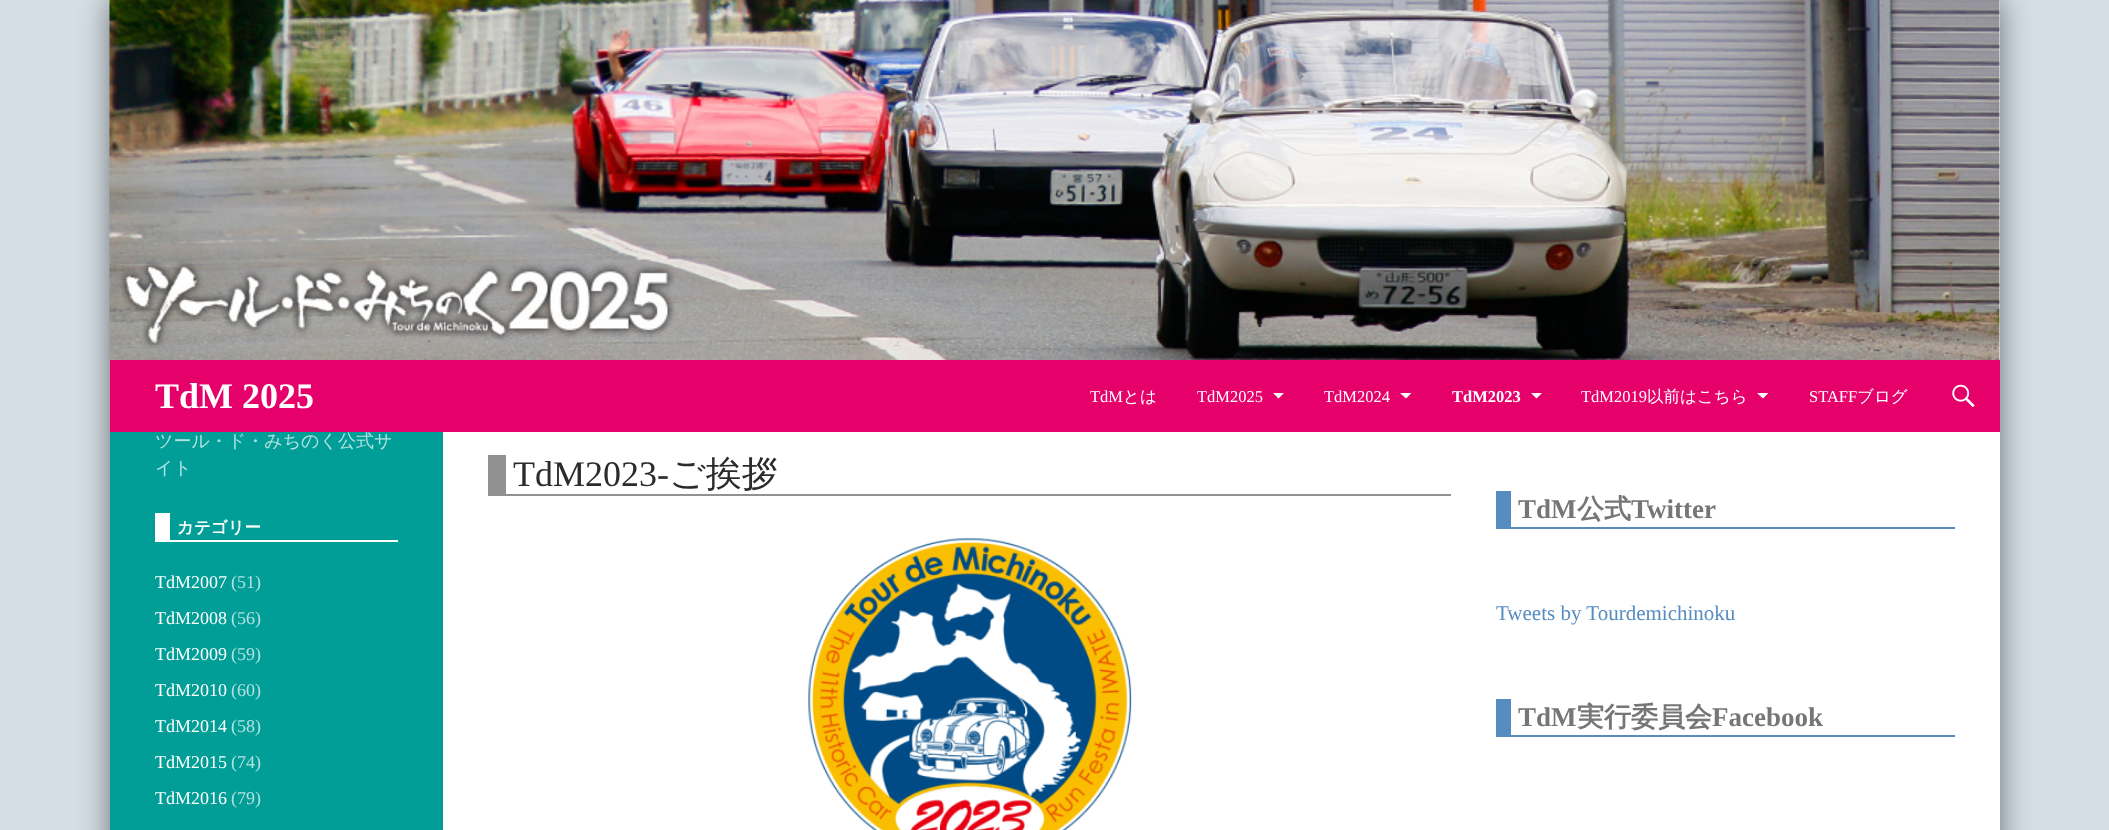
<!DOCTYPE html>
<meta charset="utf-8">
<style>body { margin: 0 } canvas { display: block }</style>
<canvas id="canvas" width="2109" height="830"></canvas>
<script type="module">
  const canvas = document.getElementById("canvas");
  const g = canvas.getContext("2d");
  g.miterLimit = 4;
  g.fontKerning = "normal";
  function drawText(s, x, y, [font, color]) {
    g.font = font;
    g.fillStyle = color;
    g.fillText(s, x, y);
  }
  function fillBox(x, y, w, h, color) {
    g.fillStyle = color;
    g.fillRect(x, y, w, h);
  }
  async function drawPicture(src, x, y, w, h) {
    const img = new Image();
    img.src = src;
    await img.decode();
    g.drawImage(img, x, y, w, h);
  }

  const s1 = ["bold 36px Liberation Serif", "#FFFFFF"];
  const s2 = ["16.5px Liberation Serif", "#FFFFFF"];
  const s3 = ["500 16.5px WenQuanYi Zen Hei", "#FFFFFF"];
  const s4 = ["bold 16.5px Liberation Serif", "#FFFFFF"];
  const s5 = ["500 18px WenQuanYi Zen Hei", "#B3E2E0"];
  const s6 = ["bold 16.5px WenQuanYi Zen Hei", "#FFFFFF"];
  const s7 = ["18px Liberation Serif", "#FFFFFF"];
  const s8 = ["18px Liberation Serif", "#B3E2E0"];
  const s9 = ["36px Liberation Serif", "#2B2B2B"];
  const s10 = ["500 36px WenQuanYi Zen Hei", "#2B2B2B"];
  const s11 = ["bold 27px Liberation Serif", "#767676"];
  const s12 = ["bold 27px WenQuanYi Zen Hei", "#767676"];
  const s13 = ["21px Liberation Serif", "#578CC1"];

  fillBox(0, 0, 2109, 830, "#D5DEE5");
  g.fillStyle = "rgba(0, 0, 0, 0.5)";
  g.filter = "blur(15px)";
  g.beginPath();
  g.rect(110, 0, 1890, 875);
  g.fill();
  g.filter = "none";
  fillBox(443, 0, 1557, 830, "#FFFFFF");
  await drawPicture("pic1.png", 109, 0, 1891, 360);
  fillBox(110, 360, 1890, 72, "#E5006A");
  drawText("TdM 2025", 155, 408, s1);
  drawText("TdM", 1090, 402, s2);
  drawText("とは", 1123, 402, s3);
  drawText("TdM2025", 1197, 402, s2);
  g.beginPath();
  g.moveTo(1273, 393);
  g.lineTo(1284, 393);
  g.lineTo(1278.5, 398.5);
  g.closePath();
  g.fill();
  drawText("TdM2024", 1324, 402, s2);
  g.beginPath();
  g.moveTo(1400, 393);
  g.lineTo(1411.5, 393);
  g.lineTo(1406, 398.5);
  g.closePath();
  g.fill();
  drawText("TdM2023", 1452, 402, s4);
  g.beginPath();
  g.moveTo(1531, 393);
  g.lineTo(1542, 393);
  g.lineTo(1536.5, 398.5);
  g.closePath();
  g.fill();
  drawText("TdM2019", 1581, 402, s2);
  drawText("以前はこちら", 1647, 402, s3);
  g.beginPath();
  g.moveTo(1757, 393);
  g.lineTo(1768.5, 393);
  g.lineTo(1763, 398.5);
  g.closePath();
  g.fill();
  drawText("STAFF", 1809, 402, s2);
  drawText("ブログ", 1857, 402, s3);
  await drawPicture("pic2.png", 1952, 384, 23, 24);
  fillBox(110, 432, 333, 398, "#009E96");
  drawText("ツール・ド・みちのく公式サ", 155, 447, s5);
  drawText("イト", 155, 474, s5);
  fillBox(170, 540, 228, 2, "#FFFFFF");
  fillBox(155, 513, 15, 29, "#FFFFFF");
  drawText("カテゴリー", 177, 533, s6);
  drawText("TdM2007", 155, 588, s7);
  drawText("(51)", 231, 588, s8);
  drawText("TdM2008", 155, 624, s7);
  drawText("(56)", 231, 624, s8);
  drawText("TdM2009", 155, 660, s7);
  drawText("(59)", 231, 660, s8);
  drawText("TdM2010", 155, 696, s7);
  drawText("(60)", 231, 696, s8);
  drawText("TdM2014", 155, 732, s7);
  drawText("(58)", 231, 732, s8);
  drawText("TdM2015", 155, 768, s7);
  drawText("(74)", 231, 768, s8);
  drawText("TdM2016", 155, 804, s7);
  drawText("(79)", 231, 804, s8);
  fillBox(488, 494, 963, 2, "#919191");
  fillBox(488, 455, 18, 39, "#919191");
  drawText("TdM2023-", 513, 486, s9);
  drawText("ご挨拶", 669, 486, s10);
  await drawPicture("pic3.png", 808, 538, 324, 292);
  fillBox(1496, 527, 459, 2, "#578CC1");
  fillBox(1496, 491, 15, 36, "#578CC1");
  drawText("TdM", 1518, 518, s11);
  drawText("公式", 1577, 518, s12);
  drawText("Twitter", 1631, 518, s11);
  drawText("Tweets by Tourdemichinoku", 1496, 620, s13);
  fillBox(1511, 735, 444, 2, "#578CC1");
  fillBox(1496, 699, 15, 38, "#578CC1");
  drawText("TdM", 1518, 726, s11);
  drawText("実行委員会", 1577, 726, s12);
  drawText("Facebook", 1712, 726, s11);
</script>
